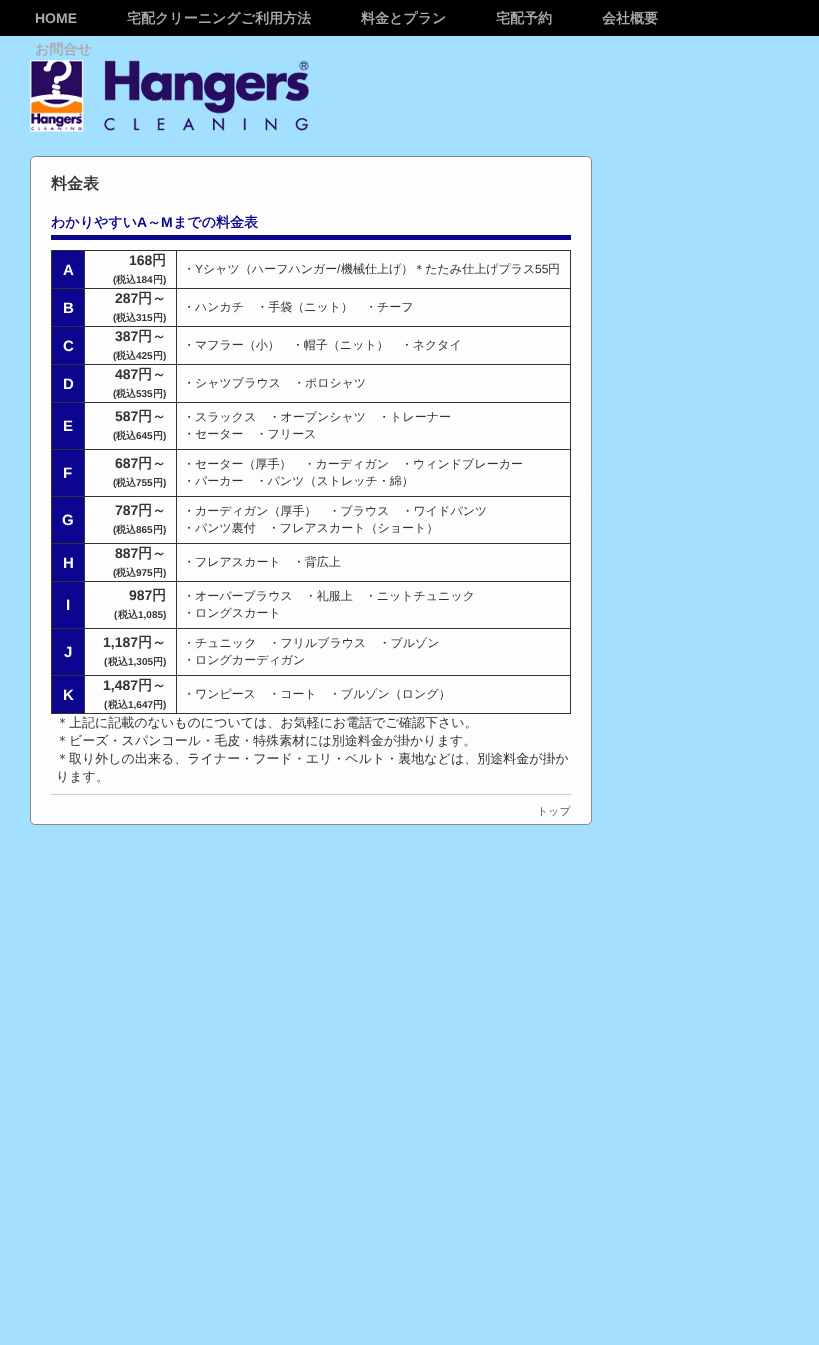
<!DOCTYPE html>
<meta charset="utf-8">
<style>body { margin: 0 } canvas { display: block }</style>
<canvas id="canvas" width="819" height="1345"></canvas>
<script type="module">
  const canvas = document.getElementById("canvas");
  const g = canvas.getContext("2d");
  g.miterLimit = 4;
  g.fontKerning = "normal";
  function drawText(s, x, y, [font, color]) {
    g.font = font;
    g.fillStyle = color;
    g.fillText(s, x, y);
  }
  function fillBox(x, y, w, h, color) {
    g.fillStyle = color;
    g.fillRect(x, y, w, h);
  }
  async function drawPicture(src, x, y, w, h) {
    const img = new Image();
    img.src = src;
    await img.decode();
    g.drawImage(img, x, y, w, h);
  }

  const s1 = ["bold 14px Liberation Sans", "#AAAAAA"];
  const s2 = ["bold 14px WenQuanYi Zen Hei", "#AAAAAA"];
  const s3 = ["bold 16px WenQuanYi Zen Hei", "#333333"];
  const s4 = ["bold 14px WenQuanYi Zen Hei", "#0B058F"];
  const s5 = ["bold 14px Liberation Sans", "#0B058F"];
  const s6 = ["bold 15px Liberation Sans", "#FFFFFF"];
  const s7 = ["bold 14px Liberation Sans", "#333333"];
  const s8 = ["bold 14px WenQuanYi Zen Hei", "#333333"];
  const s9 = ["bold 10px Liberation Sans", "#333333"];
  const s10 = ["bold 10px WenQuanYi Zen Hei", "#333333"];
  const s11 = ["500 12px WenQuanYi Zen Hei", "#333333"];
  const s12 = ["12px Liberation Sans", "#333333"];
  const s13 = ["500 13px WenQuanYi Zen Hei", "#333333"];
  const s14 = ["500 11px WenQuanYi Zen Hei", "#555555"];

  fillBox(0, 0, 819, 1345, "#A3E0FF");
  fillBox(0, 0, 819, 36, "#000000");
  drawText("HOME", 35, 23, s1);
  drawText("宅配クリーニングご利用方法", 127, 23, s2);
  drawText("料金とプラン", 361, 23, s2);
  drawText("宅配予約", 496, 23, s2);
  drawText("会社概要", 602, 23, s2);
  drawText("お問合せ", 35, 54, s2);
  await drawPicture("pic1.png", 30, 60, 279, 72);
  g.fillStyle = "#FDFDFD";
  g.beginPath();
  g.roundRect(30.5, 156.5, 561, 668, 4.5);
  g.fill();
  g.strokeStyle = "#888888";
  g.stroke();
  drawText("料金表", 51, 189, s3);
  fillBox(51, 235, 520, 5, "#0B058F");
  drawText("わかりやすい", 51, 227, s4);
  drawText("A", 137, 227, s5);
  drawText("～", 147, 227, s4);
  drawText("M", 161, 227, s5);
  drawText("までの料金表", 173, 227, s4);
  fillBox(51, 250, 520, 1, "#333333");
  fillBox(570, 250, 1, 464, "#333333");
  fillBox(51, 713, 520, 1, "#333333");
  fillBox(51, 250, 1, 464, "#333333");
  fillBox(52, 251, 32, 37, "#0B058F");
  drawText("A", 63, 275, s6);
  fillBox(176, 288, 395, 1, "#333333");
  fillBox(176, 326, 395, 1, "#333333");
  fillBox(176, 364, 395, 1, "#333333");
  fillBox(176, 402, 395, 1, "#333333");
  fillBox(176, 449, 395, 1, "#333333");
  fillBox(176, 496, 395, 1, "#333333");
  fillBox(176, 543, 395, 1, "#333333");
  fillBox(176, 581, 395, 1, "#333333");
  fillBox(176, 628, 395, 1, "#333333");
  fillBox(176, 675, 395, 1, "#333333");
  fillBox(176, 675, 1, 39, "#333333");
  fillBox(84, 675, 93, 1, "#333333");
  fillBox(176, 628, 1, 48, "#333333");
  fillBox(84, 628, 93, 1, "#333333");
  fillBox(176, 581, 1, 48, "#333333");
  fillBox(84, 581, 93, 1, "#333333");
  fillBox(176, 543, 1, 39, "#333333");
  fillBox(84, 543, 93, 1, "#333333");
  fillBox(176, 496, 1, 48, "#333333");
  fillBox(84, 496, 93, 1, "#333333");
  fillBox(176, 449, 1, 48, "#333333");
  fillBox(84, 449, 93, 1, "#333333");
  fillBox(176, 402, 1, 48, "#333333");
  fillBox(84, 402, 93, 1, "#333333");
  fillBox(176, 364, 1, 39, "#333333");
  fillBox(84, 364, 93, 1, "#333333");
  fillBox(176, 326, 1, 39, "#333333");
  fillBox(84, 326, 93, 1, "#333333");
  fillBox(176, 288, 1, 39, "#333333");
  fillBox(84, 288, 93, 1, "#333333");
  fillBox(84, 675, 1, 39, "#333333");
  fillBox(51, 675, 34, 1, "#333333");
  fillBox(84, 628, 1, 48, "#333333");
  fillBox(51, 628, 34, 1, "#333333");
  fillBox(84, 581, 1, 48, "#333333");
  fillBox(51, 581, 34, 1, "#333333");
  fillBox(84, 543, 1, 39, "#333333");
  fillBox(51, 543, 34, 1, "#333333");
  fillBox(84, 496, 1, 48, "#333333");
  fillBox(51, 496, 34, 1, "#333333");
  fillBox(84, 449, 1, 48, "#333333");
  fillBox(51, 449, 34, 1, "#333333");
  fillBox(84, 402, 1, 48, "#333333");
  fillBox(51, 402, 34, 1, "#333333");
  fillBox(84, 364, 1, 39, "#333333");
  fillBox(51, 364, 34, 1, "#333333");
  fillBox(84, 326, 1, 39, "#333333");
  fillBox(51, 326, 34, 1, "#333333");
  fillBox(84, 288, 1, 39, "#333333");
  fillBox(51, 288, 34, 1, "#333333");
  fillBox(84, 250, 1, 39, "#333333");
  drawText("168", 129, 265, s7);
  drawText("円", 152, 265, s8);
  drawText("(", 113, 283, s9);
  drawText("税込", 116, 283, s10);
  drawText("184", 136, 283, s9);
  drawText("円", 153, 283, s10);
  drawText(")", 163, 283, s9);
  fillBox(176, 250, 1, 39, "#333333");
  drawText("・", 183, 273, s11);
  drawText("Y", 195, 273, s12);
  drawText("シャツ（ハーフハンガー", 203, 273, s11);
  drawText("/", 337, 273, s12);
  drawText("機械仕上げ）＊たたみ仕上げプラス", 341, 273, s11);
  drawText("55", 535, 273, s12);
  drawText("円", 548, 273, s11);
  fillBox(52, 289, 32, 37, "#0B058F");
  drawText("B", 63, 313, s6);
  drawText("287", 115, 303, s7);
  drawText("円～", 138, 303, s8);
  drawText("(", 113, 321, s9);
  drawText("税込", 116, 321, s10);
  drawText("315", 136, 321, s9);
  drawText("円", 153, 321, s10);
  drawText(")", 163, 321, s9);
  drawText("・ハンカチ　・手袋（ニット）　・チーフ", 183, 311, s11);
  fillBox(52, 327, 32, 37, "#0B058F");
  drawText("C", 63, 351, s6);
  drawText("387", 115, 341, s7);
  drawText("円～", 138, 341, s8);
  drawText("(", 113, 359, s9);
  drawText("税込", 116, 359, s10);
  drawText("425", 136, 359, s9);
  drawText("円", 153, 359, s10);
  drawText(")", 163, 359, s9);
  drawText("・マフラー（小）　・帽子（ニット）　・ネクタイ", 183, 349, s11);
  fillBox(52, 365, 32, 37, "#0B058F");
  drawText("D", 63, 389, s6);
  drawText("487", 115, 379, s7);
  drawText("円～", 138, 379, s8);
  drawText("(", 113, 397, s9);
  drawText("税込", 116, 397, s10);
  drawText("535", 136, 397, s9);
  drawText("円", 153, 397, s10);
  drawText(")", 163, 397, s9);
  drawText("・シャツブラウス　・ポロシャツ", 183, 387, s11);
  fillBox(52, 403, 32, 46, "#0B058F");
  drawText("E", 63, 431, s6);
  drawText("587", 115, 421, s7);
  drawText("円～", 138, 421, s8);
  drawText("(", 113, 439, s9);
  drawText("税込", 116, 439, s10);
  drawText("645", 136, 439, s9);
  drawText("円", 153, 439, s10);
  drawText(")", 163, 439, s9);
  drawText("・スラックス　・オープンシャツ　・トレーナー", 183, 421, s11);
  drawText("・セーター　・フリース", 183, 438, s11);
  fillBox(52, 450, 32, 46, "#0B058F");
  drawText("F", 63, 478, s6);
  drawText("687", 115, 468, s7);
  drawText("円～", 138, 468, s8);
  drawText("(", 113, 486, s9);
  drawText("税込", 116, 486, s10);
  drawText("755", 136, 486, s9);
  drawText("円", 153, 486, s10);
  drawText(")", 163, 486, s9);
  drawText("・セーター（厚手）　・カーディガン　・ウィンドブレーカー", 183, 468, s11);
  drawText("・パーカー　・パンツ（ストレッチ・綿）", 183, 485, s11);
  fillBox(52, 497, 32, 46, "#0B058F");
  drawText("G", 62, 525, s6);
  drawText("787", 115, 515, s7);
  drawText("円～", 138, 515, s8);
  drawText("(", 113, 533, s9);
  drawText("税込", 116, 533, s10);
  drawText("865", 136, 533, s9);
  drawText("円", 153, 533, s10);
  drawText(")", 163, 533, s9);
  drawText("・カーディガン（厚手）　・ブラウス　・ワイドパンツ", 183, 515, s11);
  drawText("・パンツ裏付　・フレアスカート（ショート）", 183, 532, s11);
  fillBox(52, 544, 32, 37, "#0B058F");
  drawText("H", 63, 568, s6);
  drawText("887", 115, 558, s7);
  drawText("円～", 138, 558, s8);
  drawText("(", 113, 576, s9);
  drawText("税込", 116, 576, s10);
  drawText("975", 136, 576, s9);
  drawText("円", 153, 576, s10);
  drawText(")", 163, 576, s9);
  drawText("・フレアスカート　・背広上", 183, 566, s11);
  fillBox(52, 582, 32, 46, "#0B058F");
  drawText("I", 66, 610, s6);
  drawText("987", 129, 600, s7);
  drawText("円", 152, 600, s8);
  drawText("(", 114, 618, s9);
  drawText("税込", 118, 618, s10);
  drawText("1,085)", 138, 618, s9);
  drawText("・オーバーブラウス　・礼服上　・ニットチュニック", 183, 600, s11);
  drawText("・ロングスカート", 183, 617, s11);
  fillBox(52, 629, 32, 46, "#0B058F");
  drawText("J", 64, 657, s6);
  drawText("1,187", 103, 647, s7);
  drawText("円～", 138, 647, s8);
  drawText("(", 104, 665, s9);
  drawText("税込", 108, 665, s10);
  drawText("1,305", 128, 665, s9);
  drawText("円", 153, 665, s10);
  drawText(")", 163, 665, s9);
  drawText("・チュニック　・フリルブラウス　・ブルゾン", 183, 647, s11);
  drawText("・ロングカーディガン", 183, 664, s11);
  fillBox(52, 676, 32, 37, "#0B058F");
  drawText("K", 63, 700, s6);
  drawText("1,487", 103, 690, s7);
  drawText("円～", 138, 690, s8);
  drawText("(", 104, 708, s9);
  drawText("税込", 108, 708, s10);
  drawText("1,647", 128, 708, s9);
  drawText("円", 153, 708, s10);
  drawText(")", 163, 708, s9);
  drawText("・ワンピース　・コート　・ブルゾン（ロング）", 183, 698, s11);
  drawText("＊上記に記載のないものについては、お気軽にお電話でご確認下さい。", 56, 727, s13);
  drawText("＊ビーズ・スパンコール・毛皮・特殊素材には別途料金が掛かります。", 56, 745, s13);
  drawText("＊取り外しの出来る、ライナー・フード・エリ・ベルト・裏地などは、別途料金が掛か", 56, 763, s13);
  drawText("ります。", 56, 781, s13);
  fillBox(51, 794, 520, 1, "#CCCCCC");
  drawText("トップ", 537, 815, s14);
</script>
